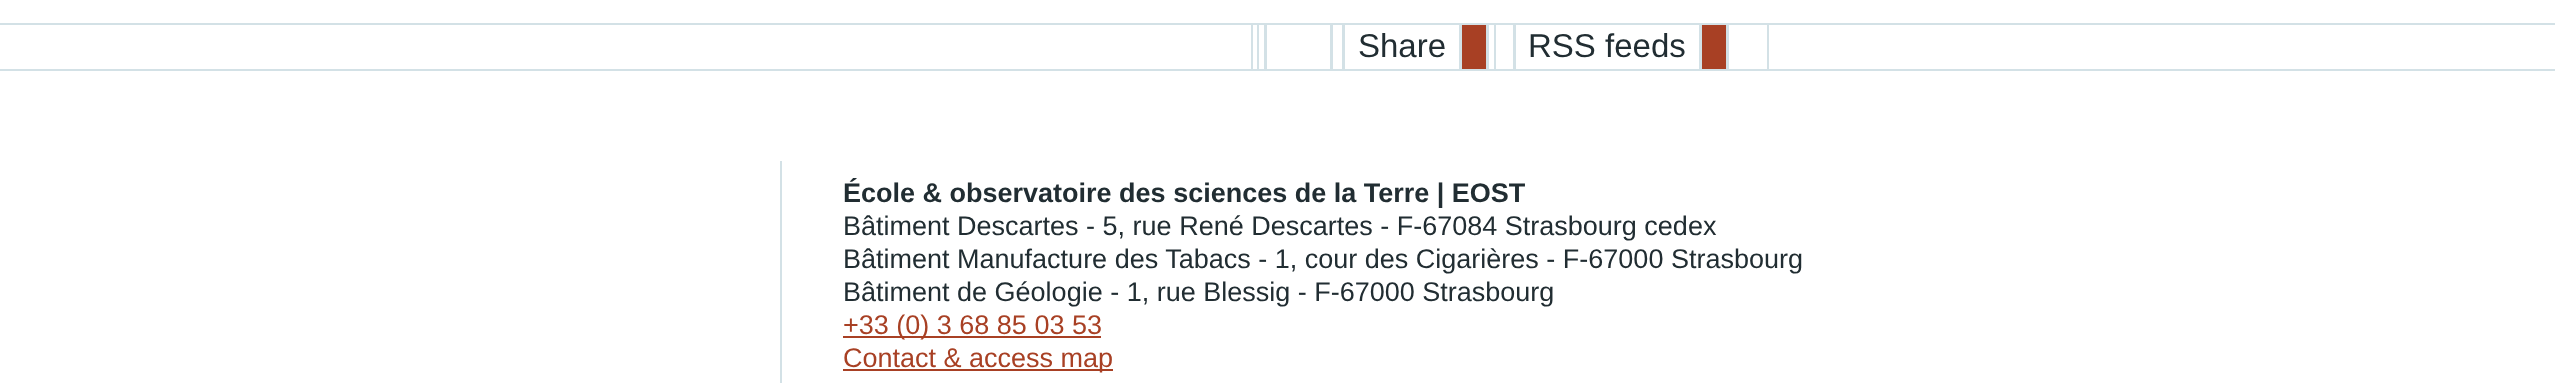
<!DOCTYPE html>
<meta charset="utf-8">
<style>body { margin: 0 } canvas { display: block }</style>
<canvas id="canvas" width="2555" height="383"></canvas>
<script type="module">
  const canvas = document.getElementById("canvas");
  const g = canvas.getContext("2d");
  g.miterLimit = 4;
  g.fontKerning = "normal";
  function drawText(s, x, y, [font, color]) {
    g.font = font;
    g.fillStyle = color;
    g.fillText(s, x, y);
  }
  function fillBox(x, y, w, h, color) {
    g.fillStyle = color;
    g.fillRect(x, y, w, h);
  }

  const s1 = ["33px Liberation Sans", "#212D32"];
  const s2 = ["bold 27px Liberation Sans", "#212D32"];
  const s3 = ["27px Liberation Sans", "#212D32"];
  const s4 = ["27px Liberation Sans", "#A84024"];

  fillBox(0, 0, 2555, 383, "#FFFFFF");
  g.strokeStyle = "#D3E1E6";
  g.lineWidth = 2;
  g.strokeRect(-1, 24, 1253, 46);
  g.strokeRect(1252, 24, 6, 46);
  g.strokeRect(1258, 24, 7, 46);
  g.strokeRect(1266, 24, 65, 46);
  g.strokeRect(1332, 24, 11, 46);
  g.strokeRect(1344, 24, 116, 46);
  drawText("Share", 1358, 57, s1);
  g.fillStyle = "#A84024";
  g.beginPath();
  g.rect(1461, 24, 26, 46);
  g.fill();
  g.stroke();
  g.strokeRect(1488, 24, 7, 46);
  g.strokeRect(1495, 24, 19, 46);
  g.strokeRect(1515, 24, 185, 46);
  drawText("RSS feeds", 1528, 57, s1);
  g.fillStyle = "#A84024";
  g.beginPath();
  g.rect(1701, 24, 26, 46);
  g.fill();
  g.stroke();
  g.strokeRect(1728, 24, 40, 46);
  g.strokeRect(1768, 24, 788, 46);
  fillBox(780, 161, 2, 222, "#D3E1E6");
  drawText("École & observatoire des sciences de la Terre | EOST", 843, 202, s2);
  drawText("Bâtiment Descartes - 5, rue René Descartes - F-67084 Strasbourg cedex", 843, 235, s3);
  drawText("Bâtiment Manufacture des Tabacs - 1, cour des Cigarières - F-67000 Strasbourg", 843, 268, s3);
  drawText("Bâtiment de Géologie - 1, rue Blessig - F-67000 Strasbourg", 843, 301, s3);
  fillBox(843, 336, 258, 2, "#A84024");
  drawText("+33 (0) 3 68 85 03 53", 843, 334, s4);
  fillBox(843, 369, 270, 2, "#A84024");
  drawText("Contact & access map", 843, 367, s4);
</script>
